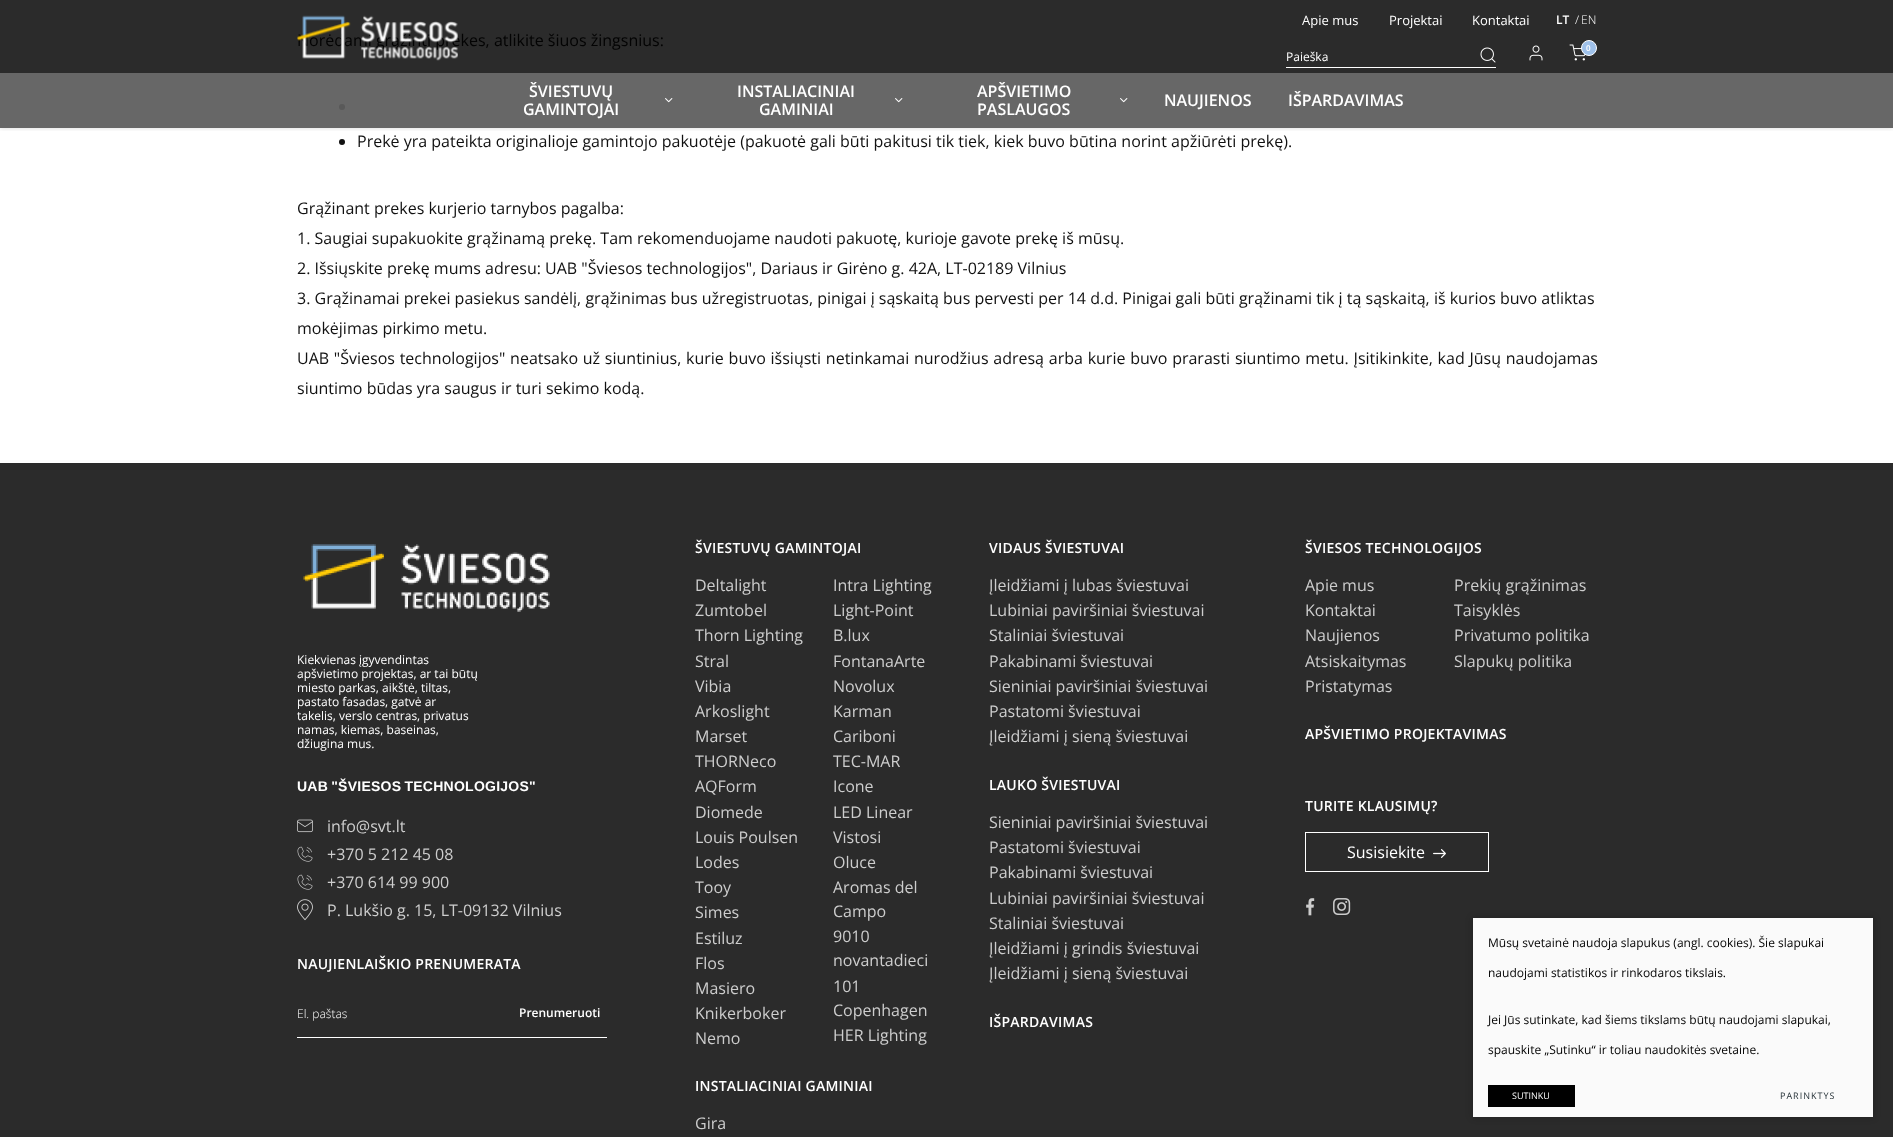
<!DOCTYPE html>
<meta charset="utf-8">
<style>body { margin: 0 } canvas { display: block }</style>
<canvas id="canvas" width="1893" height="1137"></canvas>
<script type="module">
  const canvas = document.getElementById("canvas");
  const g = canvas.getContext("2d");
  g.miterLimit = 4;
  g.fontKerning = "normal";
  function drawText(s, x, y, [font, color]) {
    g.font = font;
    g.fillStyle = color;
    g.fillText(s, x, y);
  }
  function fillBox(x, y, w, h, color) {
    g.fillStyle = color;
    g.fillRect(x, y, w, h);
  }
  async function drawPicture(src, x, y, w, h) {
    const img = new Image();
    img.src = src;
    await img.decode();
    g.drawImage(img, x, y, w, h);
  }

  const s1 = ["16px Open Sans", "#030303"];
  const s2 = ["13px Open Sans", "#FFFFFF"];
  const s3 = ["600 12px Open Sans", "#FFFFFF"];
  const s4 = ["300 12px Open Sans", "#FFFFFF"];
  const s5 = ["600 8px Open Sans", "#FFFFFF"];
  const s6 = ["12px Open Sans", "#FFFFFF"];
  const s7 = ["600 16px Open Sans", "#FFFFFF"];
  const s8 = ["16px Open Sans", "#111111"];
  const s9 = ["bold 14px Liberation Sans", "#FFFFFF"];
  const s10 = ["16px Open Sans", "#CDCDCD"];
  const s11 = ["600 14px Open Sans", "#FFFFFF"];
  const s12 = ["16px Open Sans", "#FFFFFF"];
  const s13 = ["12px Open Sans", "#030303"];
  const s14 = ["9px Open Sans", "#FFFFFF"];
  const s15 = ["9px Open Sans", "#263238"];

  fillBox(0, 0, 1893, 1137, "#FFFFFF");
  fillBox(0, 0, 1893, 73, "#2B2B2B");
  fillBox(0, 73, 1893, 55, "#676767");
  g.fillStyle = "#595959";
  g.beginPath();
  g.arc(342, 107, 3, 0, Math.PI * 2);
  g.fill();
  g.save();
  g.beginPath();
  g.rect(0, 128, 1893, 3);
  g.clip();
  g.fillStyle = "rgba(0, 0, 0, 0.15)";
  g.filter = "blur(2.5px)";
  g.beginPath();
  g.rect(0, 0, 1893, 128);
  g.fill();
  g.filter = "none";
  g.restore();
  drawText("Norėdami grąžinti prekes, atlikite šiuos žingsnius:", 297, 46, s1);
  await drawPicture("pic1.png", 297, 15, 161, 46);
  drawText("Apie mus", 1302, 25, s2);
  drawText("Projektai", 1389, 25, s2);
  drawText("Kontaktai", 1472, 25, s2);
  drawText("LT", 1556, 24, s3);
  drawText("/", 1575, 24, s4);
  drawText("EN", 1581, 24, s4);
  await drawPicture("pic2.png", 1529, 45, 14, 16);
  await drawPicture("pic3.png", 1569, 44, 17, 17);
  g.fillStyle = "#9FC1EA";
  g.beginPath();
  g.arc(1589, 48, 7.5, 0, Math.PI * 2);
  g.fill();
  g.strokeStyle = "#FFFFFF";
  g.stroke();
  drawText("0", 1586, 51, s5);
  fillBox(1286, 67, 210, 1, "#FFFFFF");
  drawText("Paieška", 1286, 61, s6);
  await drawPicture("pic4.png", 1480, 47, 16, 16);
  drawText("ŠVIESTUVŲ", 529, 97, s7);
  await drawPicture("pic5.png", 665, 98, 8, 5);
  drawText("GAMINTOJAI", 523, 115, s7);
  drawText("INSTALIACINIAI", 737, 97, s7);
  await drawPicture("pic5.png", 895, 98, 8, 5);
  drawText("GAMINIAI", 759, 115, s7);
  drawText("APŠVIETIMO", 977, 97, s7);
  await drawPicture("pic5.png", 1120, 98, 8, 5);
  drawText("PASLAUGOS", 977, 115, s7);
  drawText("NAUJIENOS", 1164, 106, s7);
  drawText("IŠPARDAVIMAS", 1288, 106, s7);
  g.fillStyle = "#111111";
  g.beginPath();
  g.arc(342, 142, 3, 0, Math.PI * 2);
  g.fill();
  drawText("Prekė yra pateikta originalioje gamintojo pakuotėje (pakuotė gali būti pakitusi tik tiek, kiek buvo būtina norint apžiūrėti prekę).", 357, 147, s8);
  drawText("Grąžinant prekes kurjerio tarnybos pagalba:", 297, 214, s8);
  drawText("1. Saugiai supakuokite grąžinamą prekę. Tam rekomenduojame naudoti pakuotę, kurioje gavote prekę iš mūsų.", 297, 244, s8);
  drawText("2. Išsiųskite prekę mums adresu: UAB \"Šviesos technologijos\", Dariaus ir Girėno g. 42A, LT-02189 Vilnius", 297, 274, s8);
  drawText("3. Grąžinamai prekei pasiekus sandėlį, grąžinimas bus užregistruotas, pinigai į sąskaitą bus pervesti per 14 d.d. Pinigai gali būti grąžinami tik į tą sąskaitą, iš kurios buvo atliktas", 297, 304, s8);
  drawText("mokėjimas pirkimo metu.", 297, 334, s8);
  g.wordSpacing = "0.6px";
  drawText("UAB \"Šviesos technologijos\" neatsako už siuntinius, kurie buvo išsiųsti netinkamai nurodžius adresą arba kurie buvo prarasti siuntimo metu. Įsitikinkite, kad Jūsų naudojamas", 297, 364, s8);
  g.wordSpacing = "0px";
  drawText("siuntimo būdas yra saugus ir turi sekimo kodą.", 297, 394, s8);
  fillBox(0, 463, 1893, 674, "#2B2B2B");
  await drawPicture("pic6.png", 303, 544, 247, 68);
  drawText("Kiekvienas įgyvendintas", 297, 664, s6);
  drawText("apšvietimo projektas, ar tai būtų", 297, 678, s6);
  drawText("miesto parkas, aikštė, tiltas,", 297, 692, s6);
  drawText("pastato fasadas, gatvė ar", 297, 706, s6);
  drawText("takelis, verslo centras, privatus", 297, 720, s6);
  drawText("namas, kiemas, baseinas,", 297, 734, s6);
  drawText("džiugina mus.", 297, 748, s6);
  g.letterSpacing = "0.25px";
  g.wordSpacing = "-1px";
  drawText("UAB \"ŠVIESOS TECHNOLOGIJOS\"", 297, 791, s9);
  await drawPicture("pic7.png", 297, 819, 16, 14);
  g.letterSpacing = "0px";
  g.wordSpacing = "0px";
  drawText("info@svt.lt", 327, 832, s10);
  await drawPicture("pic8.png", 297, 846, 16, 16);
  drawText("+370 5 212 45 08", 327, 860, s10);
  await drawPicture("pic8.png", 297, 874, 16, 16);
  drawText("+370 614 99 900", 327, 888, s10);
  await drawPicture("pic9.png", 297, 899, 16, 22);
  drawText("P. Lukšio g. 15, LT-09132 Vilnius", 327, 916, s10);
  g.letterSpacing = "0.25px";
  drawText("NAUJIENLAIŠKIO PRENUMERATA", 297, 969, s11);
  fillBox(297, 1037, 310, 1, "#FFFFFF");
  g.letterSpacing = "0px";
  drawText("El. paštas", 297, 1018, s4);
  drawText("Prenumeruoti", 519, 1017, s3);
  g.letterSpacing = "0.25px";
  drawText("ŠVIESTUVŲ GAMINTOJAI", 695, 553, s11);
  g.letterSpacing = "0px";
  drawText("Deltalight", 695, 591, s10);
  drawText("Intra Lighting", 833, 591, s10);
  drawText("Zumtobel", 695, 616, s10);
  drawText("Light-Point", 833, 616, s10);
  drawText("Thorn Lighting", 695, 641, s10);
  drawText("B.lux", 833, 641, s10);
  drawText("Stral", 695, 667, s10);
  drawText("FontanaArte", 833, 667, s10);
  drawText("Vibia", 695, 692, s10);
  drawText("Novolux", 833, 692, s10);
  drawText("Arkoslight", 695, 717, s10);
  drawText("Karman", 833, 717, s10);
  drawText("Marset", 695, 742, s10);
  drawText("Cariboni", 833, 742, s10);
  drawText("THORNeco", 695, 767, s10);
  drawText("TEC-MAR", 833, 767, s10);
  drawText("AQForm", 695, 792, s10);
  drawText("Icone", 833, 792, s10);
  drawText("Diomede", 695, 818, s10);
  drawText("LED Linear", 833, 818, s10);
  drawText("Louis Poulsen", 695, 843, s10);
  drawText("Vistosi", 833, 843, s10);
  drawText("Lodes", 695, 868, s10);
  drawText("Oluce", 833, 868, s10);
  drawText("Tooy", 695, 893, s10);
  drawText("Aromas del", 833, 893, s10);
  drawText("Campo", 833, 917, s10);
  drawText("Simes", 695, 918, s10);
  drawText("Estiluz", 695, 944, s10);
  drawText("9010", 833, 942, s10);
  drawText("novantadieci", 833, 966, s10);
  drawText("Flos", 695, 969, s10);
  drawText("Masiero", 695, 994, s10);
  drawText("101", 833, 992, s10);
  drawText("Copenhagen", 833, 1016, s10);
  drawText("Knikerboker", 695, 1019, s10);
  drawText("Nemo", 695, 1044, s10);
  drawText("HER Lighting", 833, 1041, s10);
  g.letterSpacing = "0.25px";
  drawText("INSTALIACINIAI GAMINIAI", 695, 1091, s11);
  g.letterSpacing = "0px";
  drawText("Gira", 695, 1129, s10);
  g.letterSpacing = "0.25px";
  drawText("VIDAUS ŠVIESTUVAI", 989, 553, s11);
  g.letterSpacing = "0px";
  drawText("Įleidžiami į lubas šviestuvai", 989, 591, s10);
  drawText("Lubiniai paviršiniai šviestuvai", 989, 616, s10);
  drawText("Staliniai šviestuvai", 989, 641, s10);
  drawText("Pakabinami šviestuvai", 989, 667, s10);
  drawText("Sieniniai paviršiniai šviestuvai", 989, 692, s10);
  drawText("Pastatomi šviestuvai", 989, 717, s10);
  drawText("Įleidžiami į sieną šviestuvai", 989, 742, s10);
  g.letterSpacing = "0.25px";
  drawText("LAUKO ŠVIESTUVAI", 989, 790, s11);
  g.letterSpacing = "0px";
  drawText("Sieniniai paviršiniai šviestuvai", 989, 828, s10);
  drawText("Pastatomi šviestuvai", 989, 853, s10);
  drawText("Pakabinami šviestuvai", 989, 878, s10);
  drawText("Lubiniai paviršiniai šviestuvai", 989, 904, s10);
  drawText("Staliniai šviestuvai", 989, 929, s10);
  drawText("Įleidžiami į grindis šviestuvai", 989, 954, s10);
  drawText("Įleidžiami į sieną šviestuvai", 989, 979, s10);
  g.letterSpacing = "0.25px";
  drawText("IŠPARDAVIMAS", 989, 1027, s11);
  drawText("ŠVIESOS TECHNOLOGIJOS", 1305, 553, s11);
  g.letterSpacing = "0px";
  drawText("Apie mus", 1305, 591, s10);
  drawText("Prekių grąžinimas", 1454, 591, s10);
  drawText("Kontaktai", 1305, 616, s10);
  drawText("Taisyklės", 1454, 616, s10);
  drawText("Naujienos", 1305, 641, s10);
  drawText("Privatumo politika", 1454, 641, s10);
  drawText("Atsiskaitymas", 1305, 667, s10);
  drawText("Slapukų politika", 1454, 667, s10);
  drawText("Pristatymas", 1305, 692, s10);
  g.letterSpacing = "0.25px";
  drawText("APŠVIETIMO PROJEKTAVIMAS", 1305, 739, s11);
  drawText("TURITE KLAUSIMŲ?", 1305, 811, s11);
  g.strokeRect(1305.5, 832.5, 183, 39);
  g.letterSpacing = "0px";
  drawText("Susisiekite", 1347, 858, s12);
  await drawPicture("pic10.png", 1433, 849, 13, 9);
  await drawPicture("pic11.png", 1306, 898, 9, 18);
  await drawPicture("pic12.png", 1333, 898, 18, 17);
  g.fillStyle = "rgba(0, 0, 0, 0.25)";
  g.filter = "blur(3.5px)";
  g.beginPath();
  g.rect(1473, 918, 400, 199);
  g.fill();
  g.filter = "none";
  fillBox(1473, 918, 400, 199, "#FAFAFA");
  drawText("Mūsų svetainė naudoja slapukus (angl. cookies). Šie slapukai", 1488, 947, s13);
  drawText("naudojami statistikos ir rinkodaros tikslais.", 1488, 977, s13);
  drawText("Jei Jūs sutinkate, kad šiems tikslams būtų naudojami slapukai,", 1488, 1024, s13);
  drawText("spauskite „Sutinku“ ir toliau naudokitės svetaine.", 1488, 1054, s13);
  fillBox(1488, 1085, 87, 22, "#000000");
  drawText("SUTINKU", 1512, 1099, s14);
  g.letterSpacing = "1px";
  drawText("PARINKTYS", 1780, 1099, s15);
</script>
